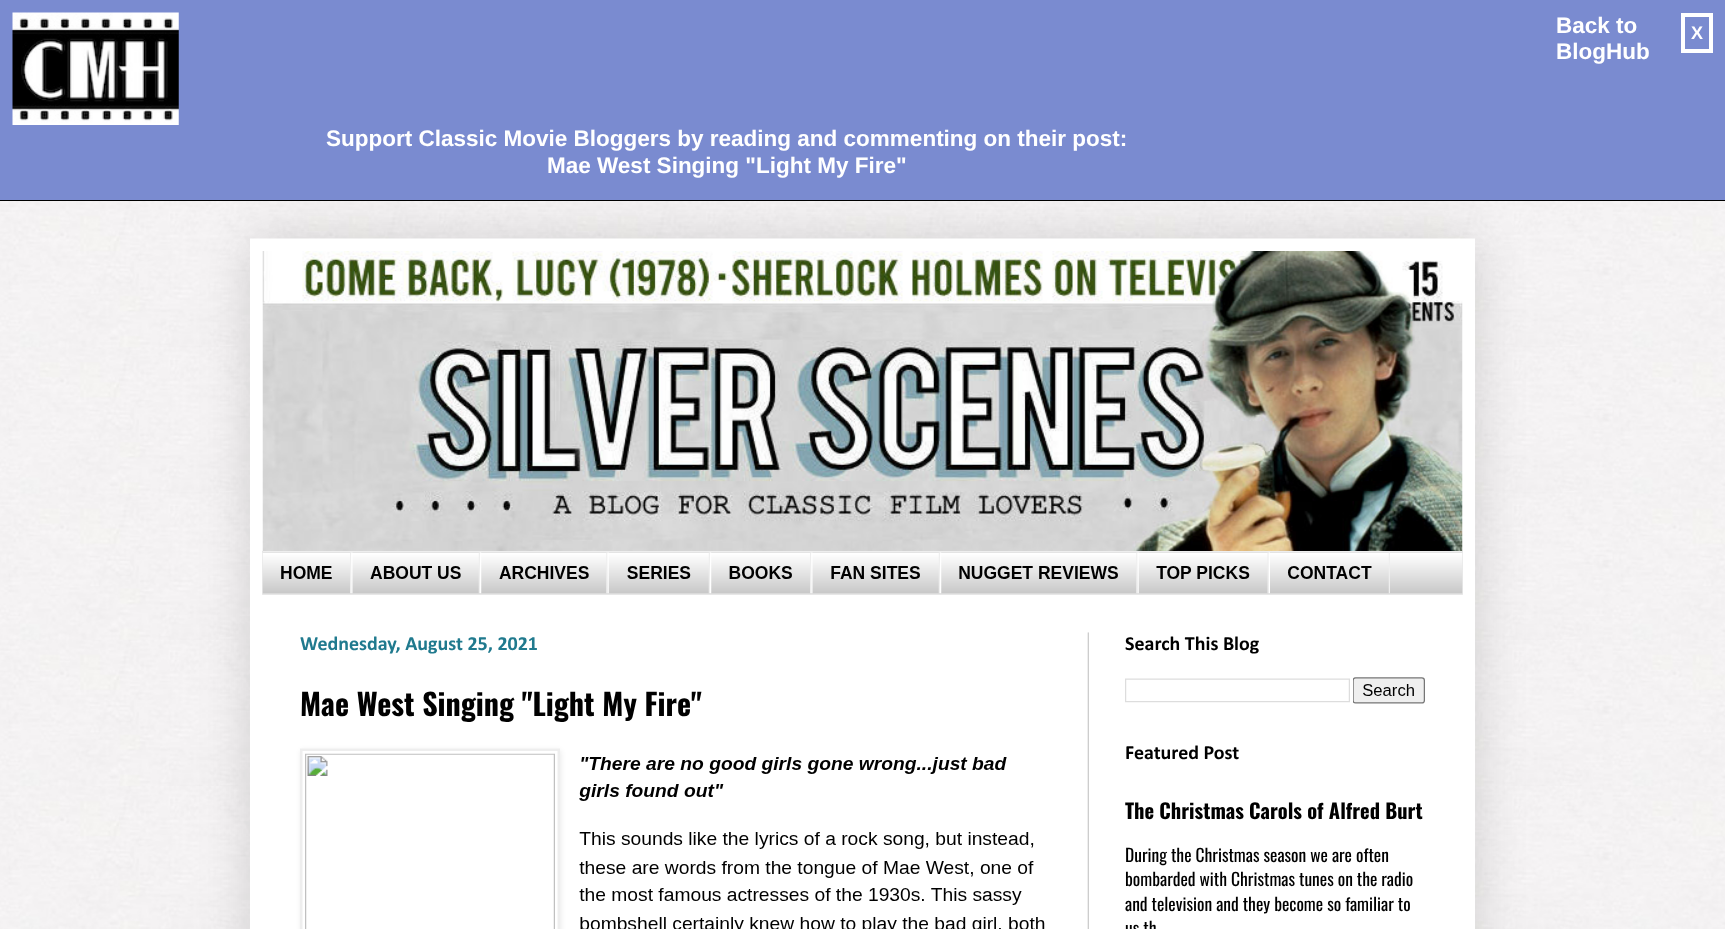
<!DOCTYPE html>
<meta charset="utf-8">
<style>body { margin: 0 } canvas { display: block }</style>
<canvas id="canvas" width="1725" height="929"></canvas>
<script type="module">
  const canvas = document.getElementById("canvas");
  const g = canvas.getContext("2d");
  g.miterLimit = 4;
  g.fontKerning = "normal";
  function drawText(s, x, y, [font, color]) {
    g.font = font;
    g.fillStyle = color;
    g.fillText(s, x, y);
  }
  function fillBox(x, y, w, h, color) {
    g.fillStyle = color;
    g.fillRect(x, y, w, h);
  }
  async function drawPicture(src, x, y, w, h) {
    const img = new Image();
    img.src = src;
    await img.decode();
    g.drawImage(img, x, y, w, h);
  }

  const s1 = ["bold 22.5px Liberation Sans", "#FFFFFF"];
  const s2 = ["bold 18px Liberation Sans", "#FFFFFF"];

  fillBox(0, 0, 1725, 929, "#000000");
  fillBox(0, 0, 1725, 200, "#7A8BD0");
  await drawPicture("pic1.png", 12, 12, 167, 113);
  drawText("Back to", 1556, 33, s1);
  drawText("BlogHub", 1556, 59, s1);
  g.strokeStyle = "#FFFFFF";
  g.lineWidth = 4;
  g.strokeRect(1683, 15, 28, 36);
  drawText("X", 1691, 39, s2);
  drawText("Support Classic Movie Bloggers by reading and commenting on their post:", 326, 146, s1);
  drawText("Mae West Singing \"Light My Fire\"", 547, 173, s1);
  await drawPicture("pic2.png", 0, 201, 1725, 728);
</script>
